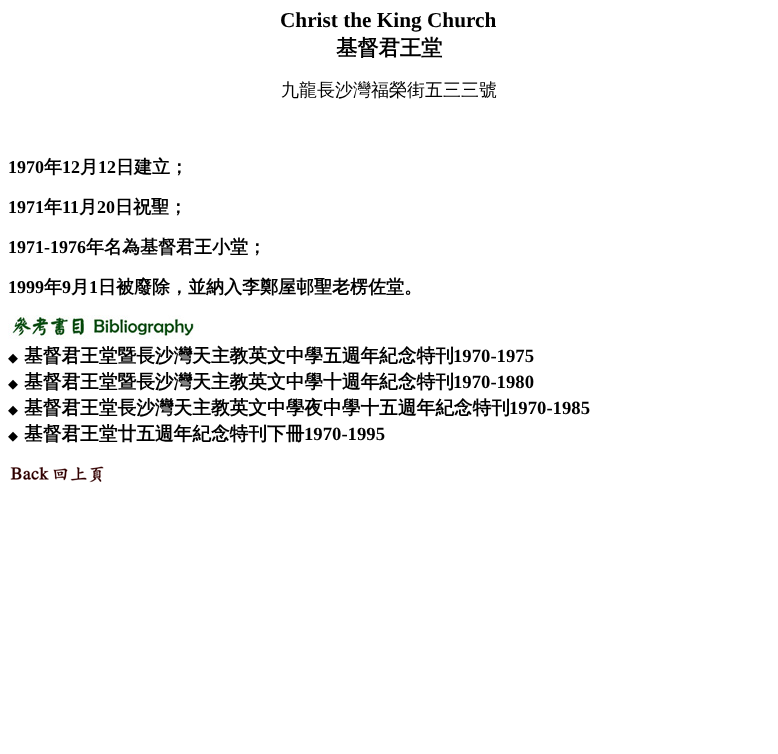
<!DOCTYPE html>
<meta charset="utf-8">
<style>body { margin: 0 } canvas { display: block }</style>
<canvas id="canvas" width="778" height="754"></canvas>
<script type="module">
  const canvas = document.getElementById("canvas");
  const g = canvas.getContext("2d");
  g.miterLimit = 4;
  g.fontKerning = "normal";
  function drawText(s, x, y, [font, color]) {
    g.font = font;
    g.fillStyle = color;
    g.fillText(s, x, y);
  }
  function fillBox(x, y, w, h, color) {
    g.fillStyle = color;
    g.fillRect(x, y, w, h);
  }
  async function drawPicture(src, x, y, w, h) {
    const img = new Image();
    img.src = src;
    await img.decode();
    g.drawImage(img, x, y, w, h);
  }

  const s1 = ["bold 21.25px Liberation Serif", "#000000"];
  const s2 = ["bold 21.25px WenQuanYi Zen Hei", "#000000"];
  const s3 = ["500 18px WenQuanYi Zen Hei", "#000000"];
  const s4 = ["bold 18px Liberation Serif", "#000000"];
  const s5 = ["bold 18px WenQuanYi Zen Hei", "#000000"];
  const s6 = ["13px DejaVu Sans", "#000000"];
  const s7 = ["bold 18.7px WenQuanYi Zen Hei", "#000000"];
  const s8 = ["bold 18.7px Liberation Serif", "#000000"];

  fillBox(0, 0, 778, 754, "#FFFFFF");
  drawText("Christ the King Church", 280, 27, s1);
  drawText("基督君王堂", 336, 55, s2);
  drawText("九龍長沙灣福榮街五三三號", 281, 96, s3);
  drawText("1970", 8, 173, s4);
  drawText("年", 44, 173, s5);
  drawText("12", 62, 173, s4);
  drawText("月", 80, 173, s5);
  drawText("12", 98, 173, s4);
  drawText("日建立；", 116, 173, s5);
  drawText("1971", 8, 213, s4);
  drawText("年", 44, 213, s5);
  drawText("11", 62, 213, s4);
  drawText("月", 79, 213, s5);
  drawText("20", 97, 213, s4);
  drawText("日祝聖；", 115, 213, s5);
  drawText("1971-1976", 8, 253, s4);
  drawText("年名為基督君王小堂；", 86, 253, s5);
  drawText("1999", 8, 293, s4);
  drawText("年", 44, 293, s5);
  drawText("9", 62, 293, s4);
  drawText("月", 71, 293, s5);
  drawText("1", 89, 293, s4);
  drawText("日被廢除，並納入李鄭屋邨聖老楞佐堂。", 98, 293, s5);
  await drawPicture("pic1.png", 8, 315, 191, 24);
  drawText("◆", 8, 362, s6);
  drawText("基督君王堂暨長沙灣天主教英文中學五週年紀念特刊", 24, 362, s7);
  drawText("1970-1975", 453, 362, s8);
  drawText("◆", 8, 388, s6);
  drawText("基督君王堂暨長沙灣天主教英文中學十週年紀念特刊", 24, 388, s7);
  drawText("1970-1980", 453, 388, s8);
  drawText("◆", 8, 414, s6);
  drawText("基督君王堂長沙灣天主教英文中學夜中學十五週年紀念特刊", 24, 414, s7);
  drawText("1970-1985", 509, 414, s8);
  drawText("◆", 8, 440, s6);
  drawText("基督君王堂廿五週年紀念特刊下冊", 24, 440, s7);
  drawText("1970-1995", 304, 440, s8);
  await drawPicture("pic2.png", 10, 466, 94, 17);
</script>
